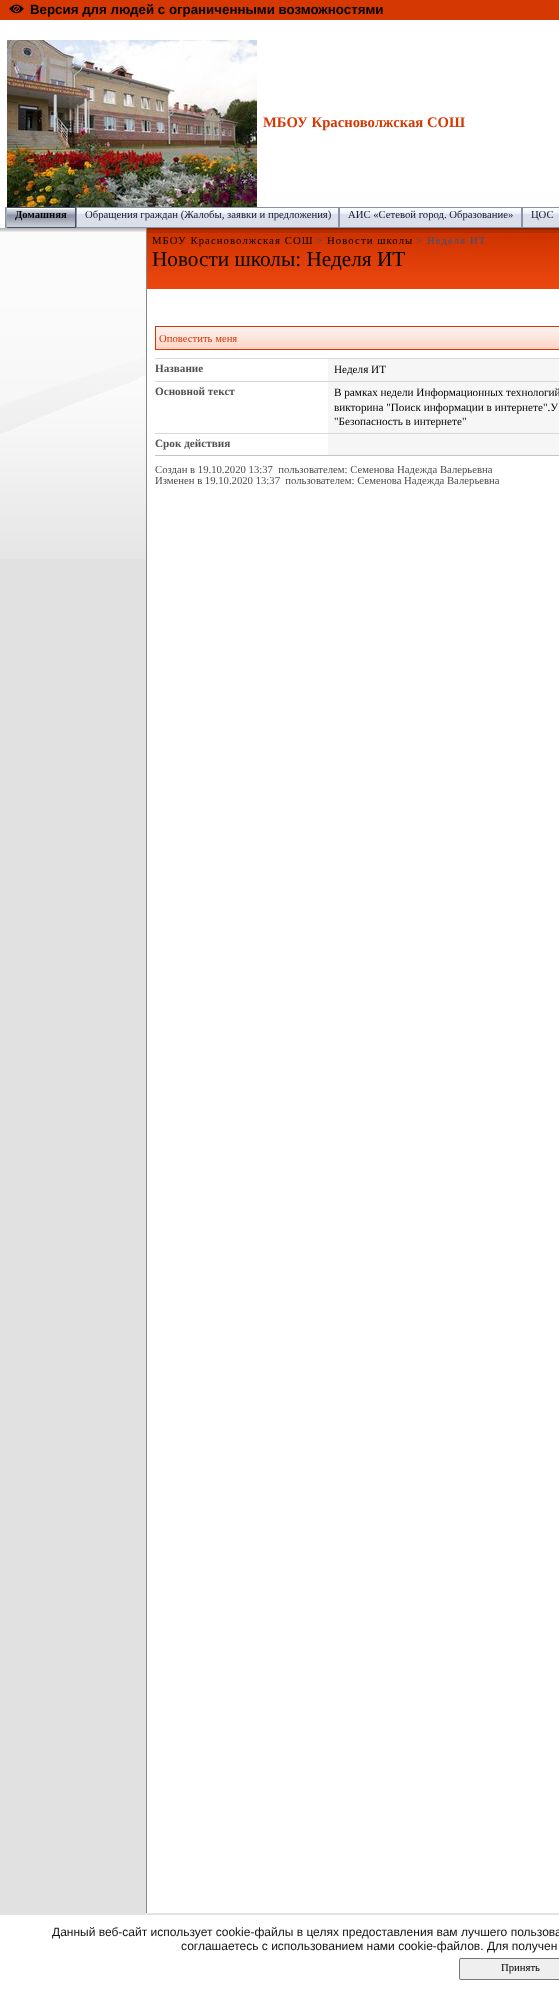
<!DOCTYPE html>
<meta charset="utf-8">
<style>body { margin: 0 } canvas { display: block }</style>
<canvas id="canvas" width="559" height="1990"></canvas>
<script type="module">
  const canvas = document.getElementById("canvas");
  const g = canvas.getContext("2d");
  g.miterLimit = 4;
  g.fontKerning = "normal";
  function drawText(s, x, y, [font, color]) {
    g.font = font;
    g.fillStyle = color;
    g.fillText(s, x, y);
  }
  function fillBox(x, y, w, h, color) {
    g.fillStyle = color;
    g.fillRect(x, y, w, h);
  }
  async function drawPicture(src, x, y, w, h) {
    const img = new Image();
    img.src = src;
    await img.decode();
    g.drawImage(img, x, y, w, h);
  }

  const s1 = ["bold 13.3px Liberation Sans", "#000000"];
  const s2 = ["bold 14.7px Liberation Serif", "#D63804"];
  const s3 = ["bold 10.7px Liberation Serif", "#000000"];
  const s4 = ["10.7px Liberation Serif", "#121A30"];
  const s5 = ["10.7px Liberation Serif", "#000000"];
  const s6 = ["10.7px Liberation Serif", "#2A5688"];
  const s7 = ["21.25px Liberation Serif", "#000000"];
  const s8 = ["10.7px Liberation Serif", "#D63804"];
  const s9 = ["bold 11.2px Liberation Serif", "#525252"];
  const s10 = ["11.2px Liberation Serif", "#000000"];
  const s11 = ["10.7px Liberation Serif", "#4C4C4C"];
  const s12 = ["12px Liberation Sans", "#111111"];

  fillBox(0, 0, 559, 1990, "#FFFFFF");
  fillBox(0, 0, 559, 20, "#D63804");
  await drawPicture("pic1.png", 9, 4, 15, 10);
  drawText("Версия для людей с ограниченными возможностями", 30, 14, s1);
  await drawPicture("pic2.png", 7, 40, 250, 167);
  drawText("МБОУ Красноволжская СОШ", 263, 127, s2);
  fillBox(5, 207, 1, 21, "#8B92A5");
  fillBox(6, 207, 70, 1, "#414E72");
  fillBox(75, 207, 1, 21, "#414E72");
  fillBox(6, 227, 70, 1, "#414E72");
  fillBox(6, 207, 1, 21, "#A7ACBA");
  await drawPicture("pic3.png", 7, 208, 68, 19);
  drawText("Домашняя", 15, 218, s3);
  g.strokeStyle = "#8B92A5";
  g.strokeRect(76.5, 207.5, 262, 20);
  await drawPicture("pic4.png", 77, 208, 261, 19);
  drawText("Обращения граждан (Жалобы, заявки и предложения)", 85, 218, s4);
  g.strokeRect(339.5, 207.5, 182, 20);
  await drawPicture("pic5.png", 340, 208, 181, 19);
  drawText("АИС «Сетевой город. Образование»", 348, 218, s4);
  g.strokeRect(522.5, 207.5, 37, 20);
  await drawPicture("pic6.png", 523, 208, 36, 19);
  drawText("ЦОС", 531, 218, s4);
  fillBox(0, 232, 146, 57, "#FBFBFB");
  await drawPicture("pic7.png", 0, 228, 138, 4);
  await drawPicture("pic8.png", 138, 228, 8, 4);
  fillBox(146, 228, 1, 1685, "#888888");
  await drawPicture("pic9.png", 147, 228, 412, 61);
  g.letterSpacing = "1.1px";
  drawText("МБОУ Красноволжская СОШ", 152, 244, s5);
  drawText(">", 316, 244, s6);
  drawText("Новости школы", 327, 244, s5);
  drawText("> Неделя ИТ", 416, 244, s6);
  g.letterSpacing = "0px";
  drawText("Новости школы: Неделя ИТ", 152, 266, s7);
  fillBox(0, 559, 146, 1354, "#E1E1E1");
  await drawPicture("pic10.png", 0, 289, 138, 270);
  await drawPicture("pic11.png", 138, 289, 8, 270);
  fillBox(156, 347, 403, 2, "#FFD4C6");
  await drawPicture("pic12.png", 156, 327, 403, 20);
  fillBox(155, 326, 404, 1, "#D63804");
  fillBox(155, 349, 404, 1, "#D63804");
  fillBox(155, 326, 1, 24, "#D63804");
  drawText("Оповестить меня", 159, 342, s8);
  fillBox(155, 358, 404, 1, "#D8D8D8");
  drawText("Название", 155, 372, s9);
  fillBox(328, 359, 231, 22, "#F6F6F6");
  drawText("Неделя ИТ", 334, 373, s10);
  fillBox(155, 381, 404, 1, "#D8D8D8");
  drawText("Основной текст", 155, 395, s9);
  fillBox(328, 382, 231, 51, "#F6F6F6");
  drawText("В рамках недели Информационных технологий", 334, 396, s10);
  drawText("викторина \"Поиск информации в интернете\".У", 334, 411, s10);
  drawText("\"Безопасность в интернете\"", 334, 425, s10);
  fillBox(155, 433, 404, 1, "#D8D8D8");
  drawText("Срок действия", 155, 447, s9);
  fillBox(328, 434, 231, 21, "#F6F6F6");
  fillBox(155, 455, 404, 1, "#C4C4C4");
  drawText("Создан в 19.10.2020 13:37  пользователем: Семенова Надежда Валерьевна", 155, 473, s11);
  drawText("Изменен в 19.10.2020 13:37  пользователем: Семенова Надежда Валерьевна", 155, 484, s11);
  fillBox(0, 1913, 559, 2, "#E3E3E3");
  drawText("Данный веб-сайт использует cookie-файлы в целях предоставления вам лучшего пользова", 52, 1936, s12);
  drawText("соглашаетесь с использованием нами cookie-файлов. Для получен", 181, 1950, s12);
  g.fillStyle = "#EFEFEF";
  g.beginPath();
  g.roundRect(459.5, 1958.5, 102, 21, 1.5);
  g.fill();
  g.strokeStyle = "#767676";
  g.stroke();
  drawText("Принять", 501, 1971, s5);
</script>
